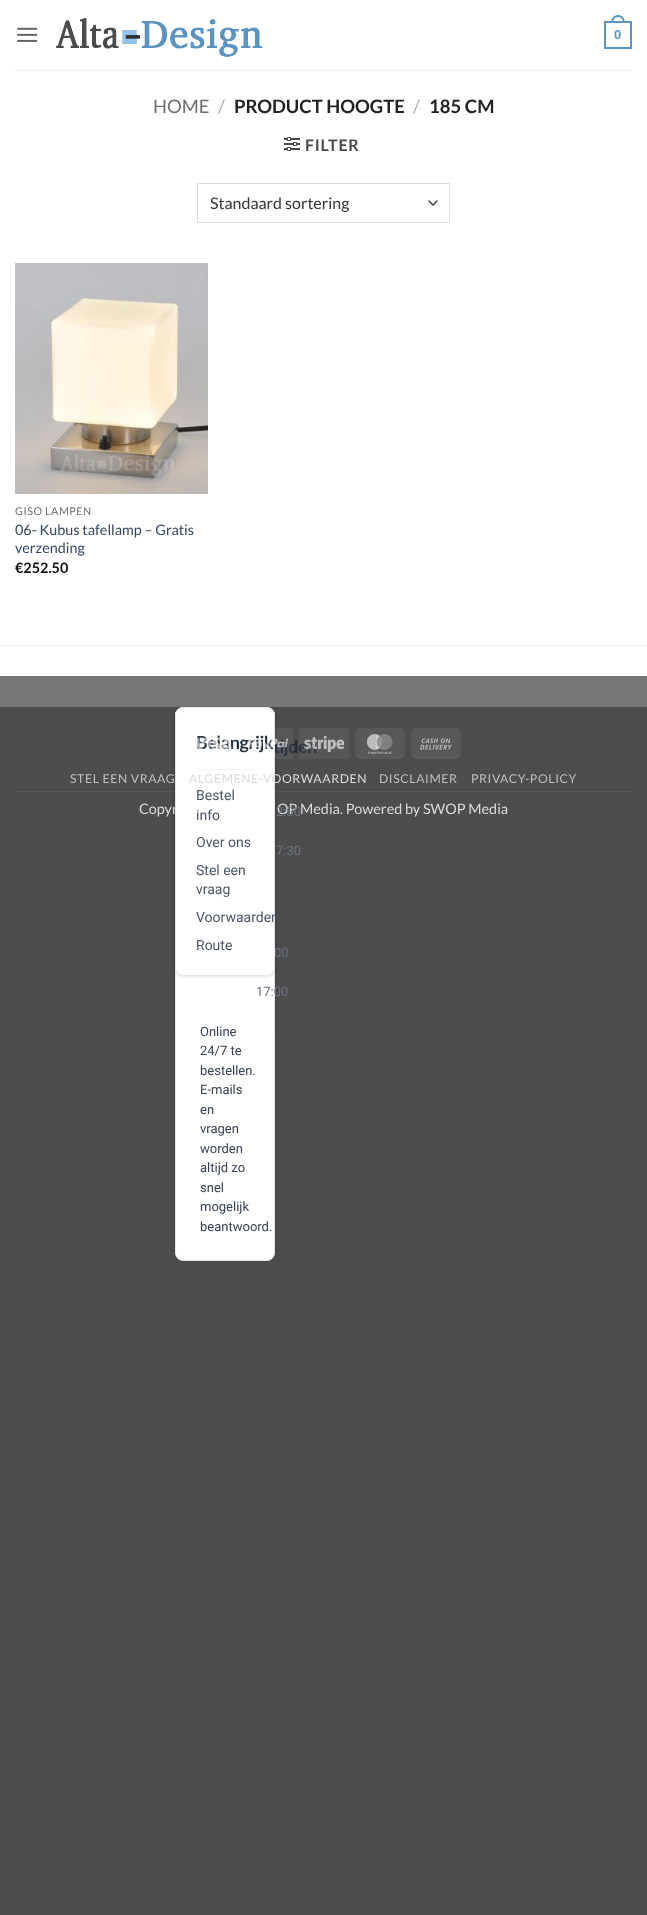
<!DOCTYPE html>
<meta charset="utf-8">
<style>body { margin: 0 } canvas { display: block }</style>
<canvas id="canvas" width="647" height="1915"></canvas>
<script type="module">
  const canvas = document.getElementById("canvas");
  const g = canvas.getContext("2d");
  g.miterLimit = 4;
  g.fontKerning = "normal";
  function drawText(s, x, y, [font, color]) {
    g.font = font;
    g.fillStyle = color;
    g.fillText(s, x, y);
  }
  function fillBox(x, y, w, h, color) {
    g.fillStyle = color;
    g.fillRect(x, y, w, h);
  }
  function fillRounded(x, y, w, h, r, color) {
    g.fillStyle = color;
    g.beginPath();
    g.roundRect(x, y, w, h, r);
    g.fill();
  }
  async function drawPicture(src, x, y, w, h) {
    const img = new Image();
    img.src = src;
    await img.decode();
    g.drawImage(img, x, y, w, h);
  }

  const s1 = ["bold 13px Liberation Sans", "#5B93C1"];
  const s2 = ["18.5px Lato", "#6E6E6E"];
  const s3 = ["18.5px Lato", "#B2B2B2"];
  const s4 = ["bold 18.5px Lato", "#222222"];
  const s5 = ["bold 16px Lato", "#4A4A4A"];
  const s6 = ["16px Lato", "#333333"];
  const s7 = ["10.75px Lato", "#6E6E6E"];
  const s8 = ["14.4px Lato", "#334862"];
  const s9 = ["bold 14.4px Lato", "#111111"];
  const s10 = ["14.4px Lato", "#DBDBDB"];
  const s11 = ["bold 18px Lato", "#1F2937"];
  const s12 = ["13px Roboto", "#6B7280"];
  const s13 = ["14px Roboto", "#4B5563"];
  const s14 = ["13px Roboto", "#374151"];
  const s15 = ["12.25px Lato", "#BFBFBF"];
  const s16 = ["12.25px Lato", "#DBDBDB"];

  fillBox(0, 0, 647, 1915, "#4D4D4D");
  fillBox(0, 0, 647, 676, "#FFFFFF");
  await drawPicture("pic1.png", 17, 27, 21, 15);
  await drawPicture("pic2.png", 56, 18, 207, 39);
  g.strokeStyle = "#5B93C1";
  g.lineWidth = 2;
  g.strokeRect(605, 22, 26, 26);
  g.fillStyle = "#5B93C1";
  g.beginPath();
  g.moveTo(618, 15);
  g.bezierCurveTo(622.5, 15, 625, 19, 625, 23);
  g.lineTo(611, 23);
  g.bezierCurveTo(611, 19, 613.5, 15, 618, 15);
  g.closePath();
  g.moveTo(618, 17);
  g.bezierCurveTo(621.5, 17, 623, 20, 623, 23);
  g.lineTo(613, 23);
  g.bezierCurveTo(613, 20, 614.5, 17, 618, 17);
  g.closePath();
  g.fill("evenodd");
  drawText("0", 614, 39, s1);
  fillBox(15, 70, 617, 1, "#EDEDED");
  drawText("HOME", 153, 113, s2);
  drawText("/", 218, 113, s3);
  drawText("PRODUCT HOOGTE", 234, 113, s4);
  drawText("/", 413, 113, s3);
  drawText("185 CM", 429, 113, s4);
  await drawPicture("pic3.png", 284, 137, 16, 14);
  g.letterSpacing = "0.75px";
  drawText("FILTER", 305, 151, s5);
  g.beginPath();
  g.moveTo(429, 201);
  g.lineTo(433, 205);
  g.lineTo(437, 201);
  g.strokeStyle = "#333333";
  g.lineWidth = 1.3;
  g.lineCap = "round";
  g.lineJoin = "round";
  g.stroke();
  g.strokeStyle = "#DDDDDD";
  g.lineWidth = 1;
  g.lineJoin = "miter";
  g.strokeRect(197.5, 183.5, 252, 39);
  g.letterSpacing = "0px";
  drawText("Standaard sortering", 210, 209, s6);
  await drawPicture("pic4.png", 15, 263, 193, 231);
  g.letterSpacing = "0.5px";
  drawText("GISO LAMPEN", 15, 515, s7);
  g.letterSpacing = "0px";
  drawText("06- Kubus tafellamp – Gratis", 15, 535, s8);
  drawText("verzending", 15, 553, s8);
  drawText("€252.50", 15, 573, s9);
  fillBox(0, 645, 647, 1, "#F2F2F2");
  fillBox(0, 677, 647, 30, "#777777");
  fillBox(0, 676, 647, 1, "#717171");
  g.fillStyle = "rgba(0, 0, 0, 0.1)";
  g.filter = "blur(1.5px)";
  g.beginPath();
  g.roundRect(175, 708, 100, 330, 8);
  g.fill();
  g.filter = "none";
  drawText("Copyr", 139, 814, s10);
  g.beginPath();
  g.roundRect(175.5, 707.5, 99, 329, 7.5);
  g.strokeStyle = "#E5E7EB";
  g.stroke();
  g.fillStyle = "rgba(0, 0, 0, 0.1)";
  g.filter = "blur(1.5px)";
  g.beginPath();
  g.roundRect(175, 708, 100, 554, 8);
  g.fill();
  g.filter = "none";
  g.fillStyle = "#FFFFFF";
  g.beginPath();
  g.roundRect(175.5, 707.5, 99, 553, 7.5);
  g.fill();
  g.stroke();
  g.fillStyle = "rgba(0, 0, 0, 0.1)";
  g.filter = "blur(1.5px)";
  g.beginPath();
  g.roundRect(175, 708, 100, 269, 8);
  g.fill();
  g.filter = "none";
  g.letterSpacing = "-0.5px";
  drawText("tijden", 273, 753, s11);
  g.letterSpacing = "0px";
  drawText("00", 274, 957, s12);
  g.fillStyle = "#FFFFFF";
  g.beginPath();
  g.roundRect(175.5, 707.5, 99, 268, 7.5);
  g.fill();
  g.stroke();
  fillBox(196, 769, 58, 1, "#F3F4F6");
  g.letterSpacing = "-0.5px";
  drawText("Belangrijk", 196, 749, s11);
  g.letterSpacing = "0px";
  drawText("Bestel", 196, 800, s13);
  drawText("info", 196, 820, s13);
  drawText("Over ons", 196, 847, s13);
  drawText("Stel een", 196, 875, s13);
  drawText("vraag", 196, 894, s13);
  drawText("Voorwaarden", 196, 922, s13);
  drawText("Route", 196, 950, s13);
  drawText("OP Media. Powered by SWOP Media", 277, 814, s10);
  drawText("2:00", 276, 816, s12);
  drawText("7:30", 276, 855, s12);
  drawText("17:00", 256, 996, s12);
  drawText("Online", 200, 1036, s14);
  drawText("24/7 te", 200, 1055, s14);
  drawText("bestellen.", 200, 1075, s14);
  drawText("E-mails", 200, 1094, s14);
  drawText("en", 200, 1114, s14);
  drawText("vragen", 200, 1133, s14);
  drawText("worden", 200, 1153, s14);
  drawText("altijd zo", 200, 1172, s14);
  drawText("snel", 200, 1192, s14);
  drawText("mogelijk", 200, 1211, s14);
  drawText("beantwoord.", 200, 1231, s14);
  fillBox(197, 735, 40, 14, "rgba(255, 255, 255, 0.06)");
  await drawPicture("pic5.png", 197, 737, 35, 13);
  fillBox(243, 728, 50, 31, "rgba(255, 255, 255, 0.06)");
  await drawPicture("pic6.png", 249, 738, 39, 12);
  fillBox(299, 728, 50, 31, "rgba(255, 255, 255, 0.06)");
  await drawPicture("pic7.png", 304, 735, 40, 18);
  fillRounded(355, 728, 50, 31, 5, "#585858");
  await drawPicture("pic8.png", 366, 734, 27, 20);
  fillRounded(411, 728, 50, 31, 5, "#585858");
  await drawPicture("pic9.png", 420, 738, 32, 12);
  fillBox(15, 791, 617, 1, "rgba(255, 255, 255, 0.06)");
  g.letterSpacing = "0.6px";
  drawText("STEL EEN VRAAG", 70, 783, s15);
  drawText("ALGEMENE-VOORWAARDEN", 189, 783, s16);
  drawText("DISCLAIMER", 379, 783, s15);
  drawText("PRIVACY-POLICY", 471, 783, s15);
</script>
